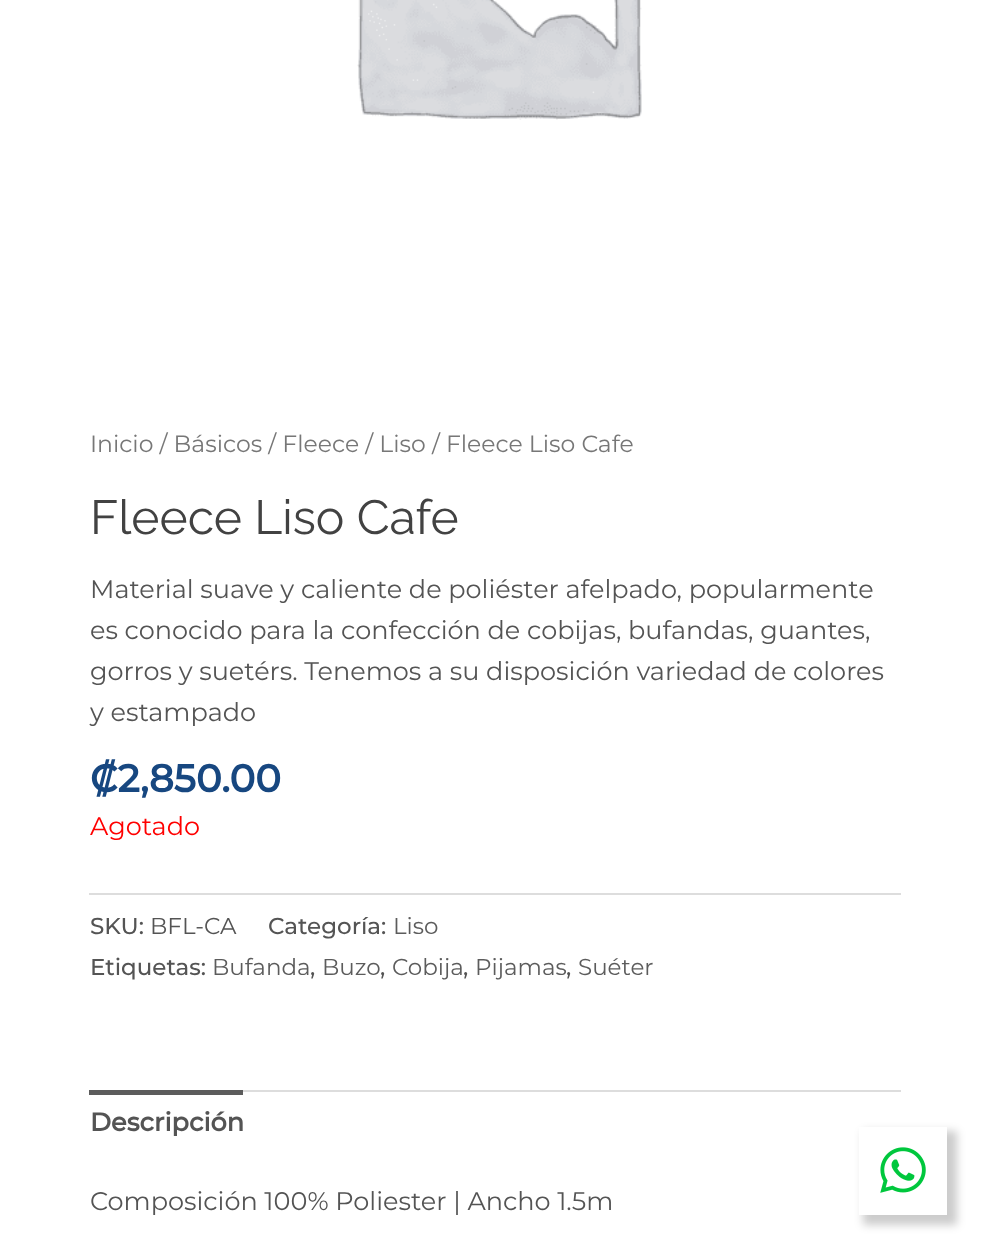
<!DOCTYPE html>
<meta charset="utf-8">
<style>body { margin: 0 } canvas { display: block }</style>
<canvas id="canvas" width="990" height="1257"></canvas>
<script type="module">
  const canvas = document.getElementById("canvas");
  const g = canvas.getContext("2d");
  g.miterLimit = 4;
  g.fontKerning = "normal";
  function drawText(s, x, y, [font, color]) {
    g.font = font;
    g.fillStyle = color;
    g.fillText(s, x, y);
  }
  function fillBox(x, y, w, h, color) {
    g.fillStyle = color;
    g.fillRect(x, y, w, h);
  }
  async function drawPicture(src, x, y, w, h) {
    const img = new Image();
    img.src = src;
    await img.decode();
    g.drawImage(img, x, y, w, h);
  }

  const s1 = ["23.5px Montserrat", "#777777"];
  const s2 = ["100 48px Raleway", "#424242"];
  const s3 = ["25.55px Montserrat", "#545454"];
  const s4 = ["bold 38.5px Montserrat", "#174780"];
  const s5 = ["25.55px Montserrat", "#FF0000"];
  const s6 = ["500 23px Montserrat", "#545454"];
  const s7 = ["23px Montserrat", "#545454"];
  const s8 = ["23px Montserrat", "#5C5C5C"];
  const s9 = ["bold 25.55px Montserrat", "#545454"];

  fillBox(0, 0, 990, 1257, "#FFFFFF");
  await drawPicture("pic1.png", 357, 0, 285, 120);
  drawText("Inicio / Básicos / Fleece / Liso / Fleece Liso Cafe", 90, 452, s1);
  drawText("Fleece Liso Cafe", 90, 534, s2);
  drawText("Material suave y caliente de poliéster afelpado, popularmente", 90, 598, s3);
  drawText("es conocido para la confección de cobijas, bufandas, guantes,", 90, 639, s3);
  drawText("gorros y suetérs. Tenemos a su disposición variedad de colores", 90, 680, s3);
  drawText("y estampado", 90, 721, s3);
  drawText("₡2,850.00", 90, 792, s4);
  drawText("Agotado", 90, 835, s5);
  fillBox(89, 893, 812, 2, "#DDDDDD");
  drawText("SKU:", 90, 934, s6);
  drawText("BFL-CA", 150, 934, s7);
  drawText("Categoría:", 268, 934, s6);
  drawText("Liso", 393, 934, s8);
  drawText("Etiquetas:", 90, 975, s6);
  drawText("Bufanda", 212, 975, s8);
  drawText(",", 310, 975, s6);
  drawText("Buzo", 322, 975, s8);
  drawText(",", 380, 975, s6);
  drawText("Cobija", 392, 975, s8);
  drawText(",", 463, 975, s6);
  drawText("Pijamas", 475, 975, s8);
  drawText(",", 566, 975, s6);
  drawText("Suéter", 578, 975, s8);
  fillBox(243, 1090, 658, 2, "#DDDDDD");
  fillBox(89, 1090, 154, 5, "#5C5C5C");
  drawText("Descripción", 90, 1131, s9);
  drawText("Composición 100% Poliester | Ancho 1.5m", 90, 1210, s3);
  g.fillStyle = "rgba(0, 0, 0, 0.2)";
  g.filter = "blur(4.5px)";
  g.beginPath();
  g.rect(863, 1131, 94, 94);
  g.fill();
  g.filter = "none";
  fillBox(859, 1127, 88, 88, "#FFFFFF");
  await drawPicture("pic2.png", 880, 1147, 46, 46);
</script>
